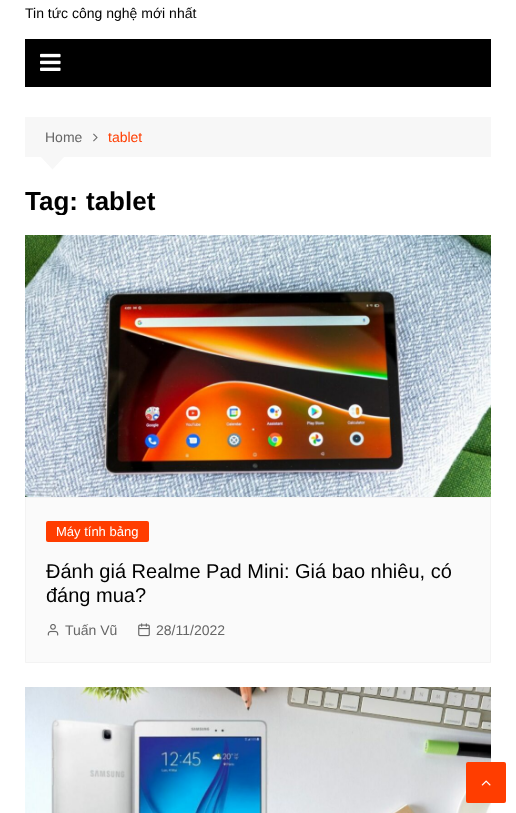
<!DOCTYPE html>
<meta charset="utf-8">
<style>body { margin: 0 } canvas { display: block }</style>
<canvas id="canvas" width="516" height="813"></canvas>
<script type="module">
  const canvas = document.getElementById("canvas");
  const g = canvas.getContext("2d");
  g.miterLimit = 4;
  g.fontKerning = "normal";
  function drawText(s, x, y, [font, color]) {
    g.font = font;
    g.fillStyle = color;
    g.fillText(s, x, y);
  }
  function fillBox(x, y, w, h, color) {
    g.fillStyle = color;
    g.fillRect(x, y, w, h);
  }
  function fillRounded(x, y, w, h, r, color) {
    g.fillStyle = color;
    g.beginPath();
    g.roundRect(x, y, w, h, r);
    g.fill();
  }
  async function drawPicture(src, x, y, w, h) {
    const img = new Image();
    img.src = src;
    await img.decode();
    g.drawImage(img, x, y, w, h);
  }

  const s1 = ["14px Liberation Sans", "#000000"];
  const s2 = ["14px Liberation Sans", "#666666"];
  const s3 = ["14px Liberation Sans", "#FF3D00"];
  const s4 = ["bold 26px Liberation Sans", "#000000"];
  const s5 = ["13px Liberation Sans", "#FFFFFF"];
  const s6 = ["20px Liberation Sans", "#000000"];

  fillBox(0, 0, 516, 813, "#FFFFFF");
  drawText("Tin tức công nghệ mới nhất", 25, 18, s1);
  fillBox(25, 39, 466, 48, "#000000");
  await drawPicture("pic1.png", 40, 53, 21, 18);
  fillBox(25, 117, 466, 40, "#F7F7F7");
  drawText("Home", 45, 142, s2);
  await drawPicture("pic2.png", 93, 133, 5, 9);
  drawText("tablet", 108, 142, s3);
  g.fillStyle = "#F7F7F7";
  g.beginPath();
  g.moveTo(40.5, 156.5);
  g.lineTo(64.5, 156.5);
  g.lineTo(52.5, 169.5);
  g.closePath();
  g.fill();
  g.save();
  g.beginPath();
  g.rect(25, 187, 466, 28);
  g.clip();
  drawText("Tag:", 25, 210, s4);
  g.restore();
  drawText("tablet", 86, 210, s4);
  await drawPicture("pic3.png", 25, 235, 466, 262);
  g.fillStyle = "#FAFAFA";
  g.beginPath();
  g.rect(25.5, 497.5, 465, 165);
  g.fill();
  g.strokeStyle = "#F3F3F3";
  g.stroke();
  fillRounded(46, 521, 103, 21, 2, "#FF3D00");
  drawText("Máy tính bảng", 56, 536, s5);
  drawText("Đánh giá Realme Pad Mini: Giá bao nhiêu, có", 46, 578, s6);
  drawText("đáng mua?", 46, 602, s6);
  await drawPicture("pic4.png", 47, 624, 12, 12);
  drawText("Tuấn Vũ", 65, 635, s2);
  await drawPicture("pic5.png", 138, 623, 12, 14);
  drawText("28/11/2022", 156, 635, s2);
  await drawPicture("pic6.png", 25, 687, 466, 126);
  fillRounded(466, 762, 40, 41, 2, "#FF3D00");
  await drawPicture("pic7.png", 481, 780, 10, 6);
</script>
